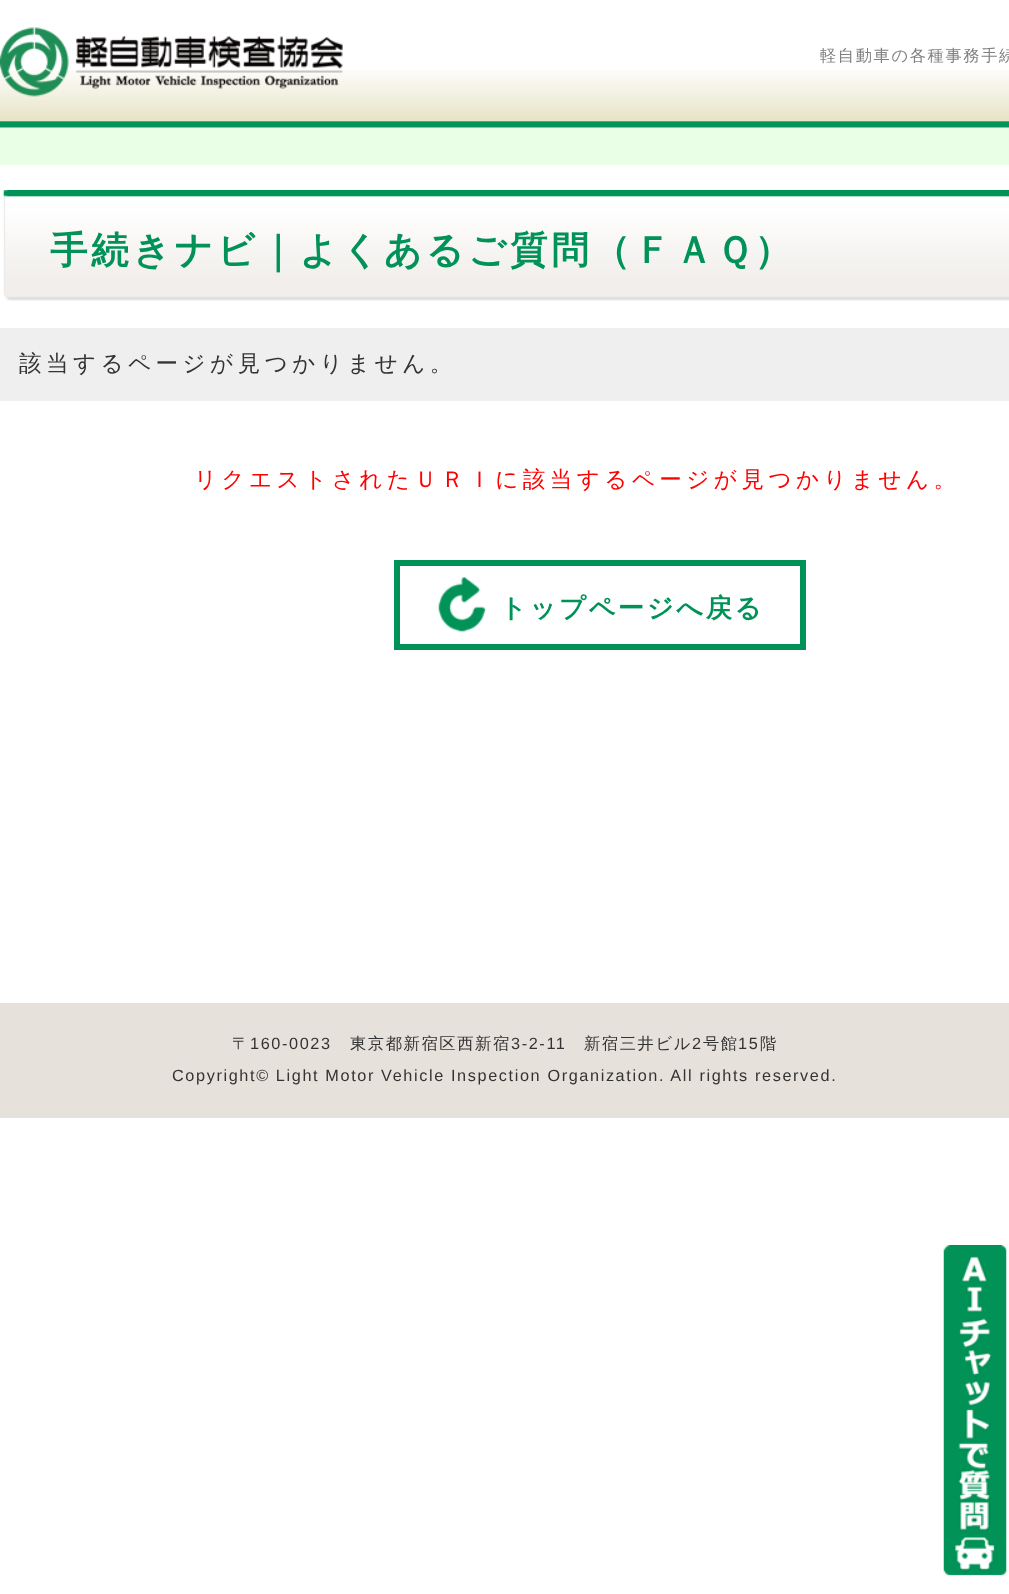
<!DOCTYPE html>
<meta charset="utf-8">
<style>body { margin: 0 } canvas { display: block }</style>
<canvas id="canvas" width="1009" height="1594"></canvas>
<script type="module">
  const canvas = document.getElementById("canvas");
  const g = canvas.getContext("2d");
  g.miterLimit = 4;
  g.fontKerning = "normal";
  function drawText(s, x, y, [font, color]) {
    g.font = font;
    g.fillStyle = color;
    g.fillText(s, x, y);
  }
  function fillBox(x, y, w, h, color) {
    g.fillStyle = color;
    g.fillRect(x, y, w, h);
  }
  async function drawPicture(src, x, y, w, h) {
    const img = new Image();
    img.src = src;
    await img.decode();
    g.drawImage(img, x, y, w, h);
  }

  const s1 = ["500 16.25px WenQuanYi Zen Hei", "#808080"];
  const s2 = ["bold 37.5px WenQuanYi Zen Hei", "#019258"];
  const s3 = ["500 22.5px WenQuanYi Zen Hei", "#333333"];
  const s4 = ["500 22.5px WenQuanYi Zen Hei", "#FF0000"];
  const s5 = ["bold 26.25px WenQuanYi Zen Hei", "#019258"];
  const s6 = ["500 16.25px WenQuanYi Zen Hei", "#333333"];
  const s7 = ["16.25px Liberation Sans", "#333333"];

  fillBox(0, 0, 1009, 1594, "#FFFFFF");
  await drawPicture("pic1.png", 0, 70, 1009, 58);
  await drawPicture("pic2.png", 0, 27, 343, 70);
  g.letterSpacing = "1.62px";
  drawText("軽自動車の各種事務手続", 820, 61, s1);
  fillBox(0, 128, 1009, 37, "#E9FFE6");
  await drawPicture("pic3.png", 3, 190, 1006, 111);
  g.letterSpacing = "3.75px";
  drawText("手続きナビ｜よくあるご質問（ＦＡＱ）", 50, 263, s2);
  fillBox(0, 328, 1009, 73, "#EFEFEF");
  g.letterSpacing = "4.5px";
  drawText("該当するページが見つかりません。", 19, 371, s3);
  drawText("リクエストされたＵＲＩに該当するページが見つかりません。", 194, 487, s4);
  await drawPicture("pic4.png", 438, 577, 48, 55);
  g.strokeStyle = "#019258";
  g.lineWidth = 6;
  g.strokeRect(397, 563, 406, 84);
  g.letterSpacing = "2.6px";
  drawText("トップページへ戻る", 500, 617, s5);
  fillBox(0, 1003, 1009, 115, "#E6E2DB");
  g.letterSpacing = "1.62px";
  drawText("〒", 232, 1049, s6);
  drawText("160-0023", 250, 1049, s7);
  drawText("東京都新宿区西新宿", 350, 1049, s6);
  drawText("3-2-11", 511, 1049, s7);
  drawText("新宿三井ビル", 584, 1049, s6);
  drawText("2", 692, 1049, s7);
  drawText("号館", 703, 1049, s6);
  drawText("15", 738, 1049, s7);
  drawText("階", 760, 1049, s6);
  drawText("Copyright© Light Motor Vehicle Inspection Organization. All rights reserved.", 172, 1081, s7);
  await drawPicture("pic5.png", 943, 1245, 64, 331);
</script>
